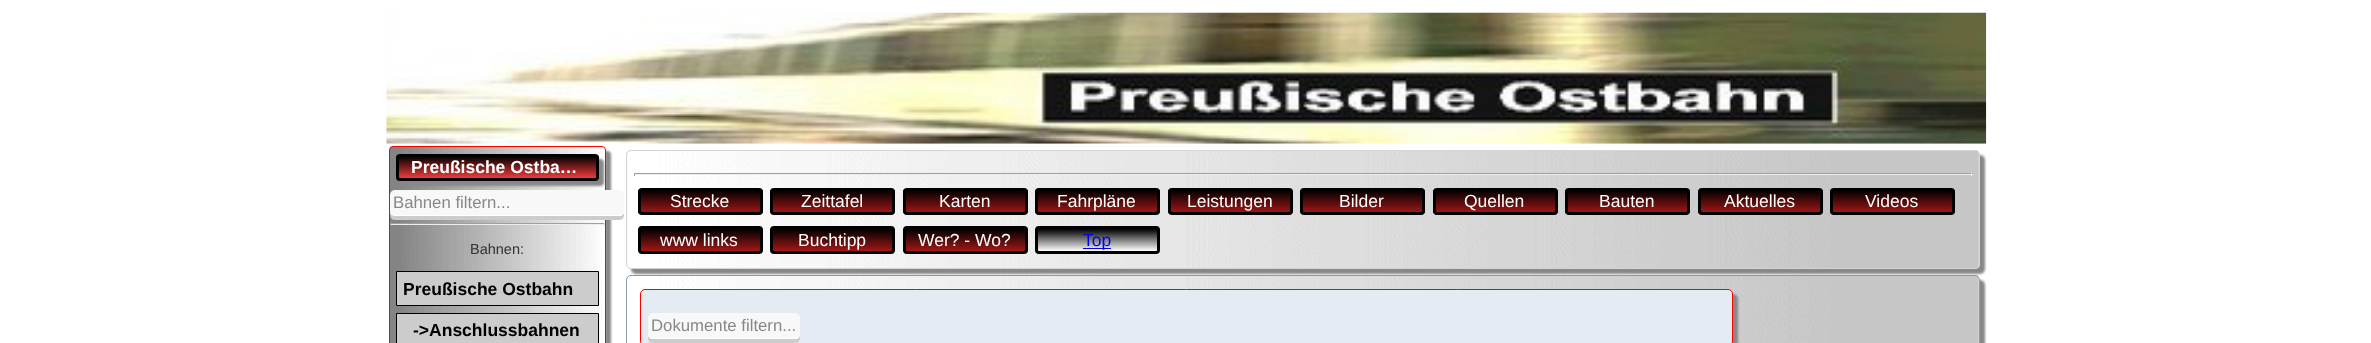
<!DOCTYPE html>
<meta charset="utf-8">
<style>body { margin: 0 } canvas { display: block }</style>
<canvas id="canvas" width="2371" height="343"></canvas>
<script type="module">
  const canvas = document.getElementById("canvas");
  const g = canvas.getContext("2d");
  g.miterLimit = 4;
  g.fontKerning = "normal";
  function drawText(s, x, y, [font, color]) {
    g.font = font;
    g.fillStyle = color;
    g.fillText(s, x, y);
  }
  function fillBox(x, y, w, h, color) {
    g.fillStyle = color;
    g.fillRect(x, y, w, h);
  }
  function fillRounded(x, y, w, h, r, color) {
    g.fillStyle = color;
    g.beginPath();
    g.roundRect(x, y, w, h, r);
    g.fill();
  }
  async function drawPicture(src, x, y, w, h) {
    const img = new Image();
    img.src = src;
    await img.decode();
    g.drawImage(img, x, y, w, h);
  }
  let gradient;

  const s1 = ["bold 17.5px Liberation Sans", "#FFFFFF"];
  const s2 = ["16.75px Liberation Sans", "#888888"];
  const s3 = ["14.5px Liberation Sans", "#333333"];
  const s4 = ["bold 17.5px Liberation Sans", "#000000"];
  const s5 = ["17.5px Liberation Sans", "#FFFFFF"];
  const s6 = ["17.5px Liberation Sans", "#0000EE"];

  fillBox(0, 0, 2371, 343, "#FFFFFF");
  await drawPicture("pic1.png", 386, 12, 1601, 132);
  g.fillStyle = "#888888";
  g.filter = "blur(1px)";
  g.beginPath();
  g.roundRect(394, 151, 217, 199, 4);
  g.fill();
  g.filter = "none";
  await drawPicture("pic2.png", 390, 146, 217, 197);
  g.beginPath();
  g.roundRect(389.5, 146.5, 216, 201, 3.5);
  g.strokeStyle = "#FF0000";
  g.stroke();
  g.filter = "blur(1px)";
  g.beginPath();
  g.roundRect(401, 159, 203, 27, 4);
  g.fill();
  g.filter = "none";
  g.save();
  g.beginPath();
  g.roundRect(396, 154, 203, 27, 4);
  g.clip();
  gradient = g.createLinearGradient(498, 156, 498, 179);
  gradient.addColorStop(0, "#000000");
  gradient.addColorStop(1, "#FC3C3C");
  g.fillStyle = gradient;
  g.fillRect(396, 156, 203, 23);
  g.restore();
  g.beginPath();
  g.roundRect(397.5, 155.5, 200, 24, 2.5);
  g.strokeStyle = "#000000";
  g.lineWidth = 3;
  g.stroke();
  drawText("Preußische Ostba…", 411, 173, s1);
  g.fillStyle = "#CCCCCC";
  g.beginPath();
  g.moveTo(390, 211);
  g.bezierCurveTo(390, 215, 390, 220, 395, 220);
  g.lineTo(619, 220);
  g.bezierCurveTo(625, 220, 624, 214, 624, 210);
  g.lineTo(624, 197);
  g.lineTo(624, 211);
  g.bezierCurveTo(624, 214, 622, 216, 619, 216);
  g.lineTo(395, 216);
  g.bezierCurveTo(392, 216, 390, 214, 390, 211);
  g.closePath();
  g.fill();
  fillRounded(390, 190, 234, 26, 5, "#F8F8F8");
  g.fillStyle = "#FFFFFF";
  g.beginPath();
  g.moveTo(390, 210);
  g.lineTo(390, 211);
  g.bezierCurveTo(390, 214, 392, 216, 395, 216);
  g.lineTo(619, 216);
  g.bezierCurveTo(622, 216, 624, 214, 624, 211);
  g.lineTo(624, 210);
  g.bezierCurveTo(624, 213, 622, 215, 619, 215);
  g.lineTo(395, 215);
  g.bezierCurveTo(392, 215, 390, 213, 390, 210);
  g.closePath();
  g.fill();
  drawText("Bahnen filtern...", 393, 208, s2);
  fillBox(390, 223, 215, 1, "#9F9F9F");
  fillBox(604, 223, 1, 3, "#EEEEEE");
  fillBox(390, 224, 215, 1, "#EEEEEE");
  fillBox(390, 223, 1, 3, "#9F9F9F");
  drawText("Bahnen:", 470, 254, s3);
  g.fillStyle = "#CCCCCC";
  g.beginPath();
  g.rect(396.5, 271.5, 202, 34);
  g.fill();
  g.lineWidth = 1;
  g.stroke();
  drawText("Preußische Ostbahn", 403, 295, s4);
  g.fillStyle = "#CCCCCC";
  g.beginPath();
  g.rect(396.5, 313.5, 202, 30);
  g.fill();
  g.stroke();
  drawText("->Anschlussbahnen", 413, 336, s4);
  g.save();
  g.beginPath();
  g.rect(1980, 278, 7, 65);
  g.clip();
  g.fillStyle = "#888888";
  g.filter = "blur(1px)";
  g.beginPath();
  g.roundRect(631, 280, 1354, 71, 5);
  g.fill();
  g.filter = "none";
  g.restore();
  await drawPicture("pic4.png", 659, 275, 1320, 68);
  g.beginPath();
  g.roundRect(626.5, 275.5, 1353, 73, 4.5);
  g.strokeStyle = "#8A9DA8";
  g.stroke();
  g.fillStyle = "#888888";
  g.filter = "blur(1px)";
  g.beginPath();
  g.roundRect(631, 155, 1354, 119, 5);
  g.fill();
  g.filter = "none";
  fillRounded(626, 150, 1354, 119, 5, "#F1F3F4");
  await drawPicture("pic3.png", 627, 150, 1352, 119);
  g.beginPath();
  g.roundRect(626.5, 150.5, 1353, 118, 4.5);
  g.strokeStyle = "#D5D5D5";
  g.stroke();
  fillBox(634, 173, 1339, 1, "#9F9F9F");
  fillBox(1971, 173, 1, 3, "#EEEEEE");
  fillBox(634, 174, 1339, 1, "#EEEEEE");
  fillBox(634, 173, 1, 3, "#9F9F9F");
  g.save();
  g.beginPath();
  g.roundRect(638, 188, 125, 27, 4);
  g.clip();
  gradient = g.createLinearGradient(700, 190, 700, 213);
  gradient.addColorStop(0, "#000000");
  gradient.addColorStop(1, "#A31717");
  g.fillStyle = gradient;
  g.fillRect(638, 190, 125, 23);
  g.restore();
  g.beginPath();
  g.roundRect(639.5, 189.5, 122, 24, 2.5);
  g.strokeStyle = "#000000";
  g.lineWidth = 3;
  g.stroke();
  drawText("Strecke", 670, 207, s5);
  g.save();
  g.beginPath();
  g.roundRect(770, 188, 125, 27, 4);
  g.clip();
  gradient = g.createLinearGradient(833, 190, 833, 213);
  gradient.addColorStop(0, "#000000");
  gradient.addColorStop(1, "#A31717");
  g.fillStyle = gradient;
  g.fillRect(770, 190, 125, 23);
  g.restore();
  g.beginPath();
  g.roundRect(771.5, 189.5, 122, 24, 2.5);
  g.stroke();
  drawText("Zeittafel", 801, 207, s5);
  g.save();
  g.beginPath();
  g.roundRect(903, 188, 125, 27, 4);
  g.clip();
  gradient = g.createLinearGradient(965, 190, 965, 213);
  gradient.addColorStop(0, "#000000");
  gradient.addColorStop(1, "#A31717");
  g.fillStyle = gradient;
  g.fillRect(903, 190, 125, 23);
  g.restore();
  g.beginPath();
  g.roundRect(904.5, 189.5, 122, 24, 2.5);
  g.stroke();
  drawText("Karten", 939, 207, s5);
  g.save();
  g.beginPath();
  g.roundRect(1035, 188, 125, 27, 4);
  g.clip();
  gradient = g.createLinearGradient(1098, 190, 1098, 213);
  gradient.addColorStop(0, "#000000");
  gradient.addColorStop(1, "#A31717");
  g.fillStyle = gradient;
  g.fillRect(1035, 190, 125, 23);
  g.restore();
  g.beginPath();
  g.roundRect(1036.5, 189.5, 122, 24, 2.5);
  g.stroke();
  drawText("Fahrpläne", 1057, 207, s5);
  g.save();
  g.beginPath();
  g.roundRect(1168, 188, 125, 27, 4);
  g.clip();
  gradient = g.createLinearGradient(1230, 190, 1230, 213);
  gradient.addColorStop(0, "#000000");
  gradient.addColorStop(1, "#A31717");
  g.fillStyle = gradient;
  g.fillRect(1168, 190, 125, 23);
  g.restore();
  g.beginPath();
  g.roundRect(1169.5, 189.5, 122, 24, 2.5);
  g.stroke();
  drawText("Leistungen", 1187, 207, s5);
  g.save();
  g.beginPath();
  g.roundRect(1300, 188, 125, 27, 4);
  g.clip();
  gradient = g.createLinearGradient(1363, 190, 1363, 213);
  gradient.addColorStop(0, "#000000");
  gradient.addColorStop(1, "#A31717");
  g.fillStyle = gradient;
  g.fillRect(1300, 190, 125, 23);
  g.restore();
  g.beginPath();
  g.roundRect(1301.5, 189.5, 122, 24, 2.5);
  g.stroke();
  drawText("Bilder", 1339, 207, s5);
  g.save();
  g.beginPath();
  g.roundRect(1433, 188, 125, 27, 4);
  g.clip();
  gradient = g.createLinearGradient(1495, 190, 1495, 213);
  gradient.addColorStop(0, "#000000");
  gradient.addColorStop(1, "#A31717");
  g.fillStyle = gradient;
  g.fillRect(1433, 190, 125, 23);
  g.restore();
  g.beginPath();
  g.roundRect(1434.5, 189.5, 122, 24, 2.5);
  g.stroke();
  drawText("Quellen", 1464, 207, s5);
  g.save();
  g.beginPath();
  g.roundRect(1565, 188, 125, 27, 4);
  g.clip();
  gradient = g.createLinearGradient(1628, 190, 1628, 213);
  gradient.addColorStop(0, "#000000");
  gradient.addColorStop(1, "#A31717");
  g.fillStyle = gradient;
  g.fillRect(1565, 190, 125, 23);
  g.restore();
  g.beginPath();
  g.roundRect(1566.5, 189.5, 122, 24, 2.5);
  g.stroke();
  drawText("Bauten", 1599, 207, s5);
  g.save();
  g.beginPath();
  g.roundRect(1698, 188, 125, 27, 4);
  g.clip();
  gradient = g.createLinearGradient(1760, 190, 1760, 213);
  gradient.addColorStop(0, "#000000");
  gradient.addColorStop(1, "#A31717");
  g.fillStyle = gradient;
  g.fillRect(1698, 190, 125, 23);
  g.restore();
  g.beginPath();
  g.roundRect(1699.5, 189.5, 122, 24, 2.5);
  g.stroke();
  drawText("Aktuelles", 1724, 207, s5);
  g.save();
  g.beginPath();
  g.roundRect(1830, 188, 125, 27, 4);
  g.clip();
  gradient = g.createLinearGradient(1893, 190, 1893, 213);
  gradient.addColorStop(0, "#000000");
  gradient.addColorStop(1, "#A31717");
  g.fillStyle = gradient;
  g.fillRect(1830, 190, 125, 23);
  g.restore();
  g.beginPath();
  g.roundRect(1831.5, 189.5, 122, 24, 2.5);
  g.stroke();
  drawText("Videos", 1865, 207, s5);
  gradient = g.createLinearGradient(700, 229, 700, 251);
  gradient.addColorStop(0, "#000000");
  gradient.addColorStop(1, "#A31717");
  g.fillStyle = gradient;
  g.fillRect(638, 229, 125, 22);
  g.beginPath();
  g.roundRect(639.5, 227.5, 122, 25, 2.5);
  g.stroke();
  drawText("www links", 660, 246, s5);
  gradient = g.createLinearGradient(833, 229, 833, 251);
  gradient.addColorStop(0, "#000000");
  gradient.addColorStop(1, "#A31717");
  g.fillStyle = gradient;
  g.fillRect(770, 229, 125, 22);
  g.beginPath();
  g.roundRect(771.5, 227.5, 122, 25, 2.5);
  g.stroke();
  drawText("Buchtipp", 798, 246, s5);
  gradient = g.createLinearGradient(965, 229, 965, 251);
  gradient.addColorStop(0, "#000000");
  gradient.addColorStop(1, "#A31717");
  g.fillStyle = gradient;
  g.fillRect(903, 229, 125, 22);
  g.beginPath();
  g.roundRect(904.5, 227.5, 122, 25, 2.5);
  g.stroke();
  drawText("Wer? - Wo?", 918, 246, s5);
  gradient = g.createLinearGradient(1098, 229, 1098, 251);
  gradient.addColorStop(0, "#000000");
  gradient.addColorStop(1, "#FFFFFF");
  g.fillStyle = gradient;
  g.fillRect(1035, 229, 125, 22);
  g.beginPath();
  g.roundRect(1036.5, 227.5, 122, 25, 2.5);
  g.stroke();
  fillBox(1083, 248, 28, 1, "#0000EE");
  drawText("Top", 1083, 246, s6);
  g.fillStyle = "#888888";
  g.filter = "blur(1px)";
  g.beginPath();
  g.roundRect(645, 294, 1093, 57, 5);
  g.fill();
  g.filter = "none";
  g.fillStyle = "#E4EBF2";
  g.beginPath();
  g.roundRect(640.5, 289.5, 1092, 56, 4.5);
  g.fill();
  g.strokeStyle = "#FF0000";
  g.lineWidth = 1;
  g.stroke();
  g.fillStyle = "#CCCCCC";
  g.beginPath();
  g.moveTo(648, 336);
  g.lineTo(648, 338);
  g.bezierCurveTo(648, 341, 650, 343, 653, 343);
  g.lineTo(795, 343);
  g.bezierCurveTo(798, 343, 800, 341, 800, 338);
  g.lineTo(800, 334);
  g.bezierCurveTo(800, 337, 798, 339, 795, 339);
  g.lineTo(652, 339);
  g.bezierCurveTo(651, 339, 649, 338, 648, 336);
  g.closePath();
  g.fill();
  fillRounded(648, 313, 152, 26, 5, "#F8F8F8");
  g.fillStyle = "#FFFFFF";
  g.beginPath();
  g.moveTo(648, 332);
  g.lineTo(648, 334);
  g.bezierCurveTo(648, 337, 650, 339, 653, 339);
  g.lineTo(795, 339);
  g.bezierCurveTo(798, 339, 800, 337, 800, 334);
  g.lineTo(800, 332);
  g.bezierCurveTo(800, 335, 798, 338, 795, 338);
  g.lineTo(652, 338);
  g.bezierCurveTo(650, 338, 648, 335, 648, 332);
  g.closePath();
  g.fill();
  drawText("Dokumente filtern...", 651, 331, s2);
</script>
